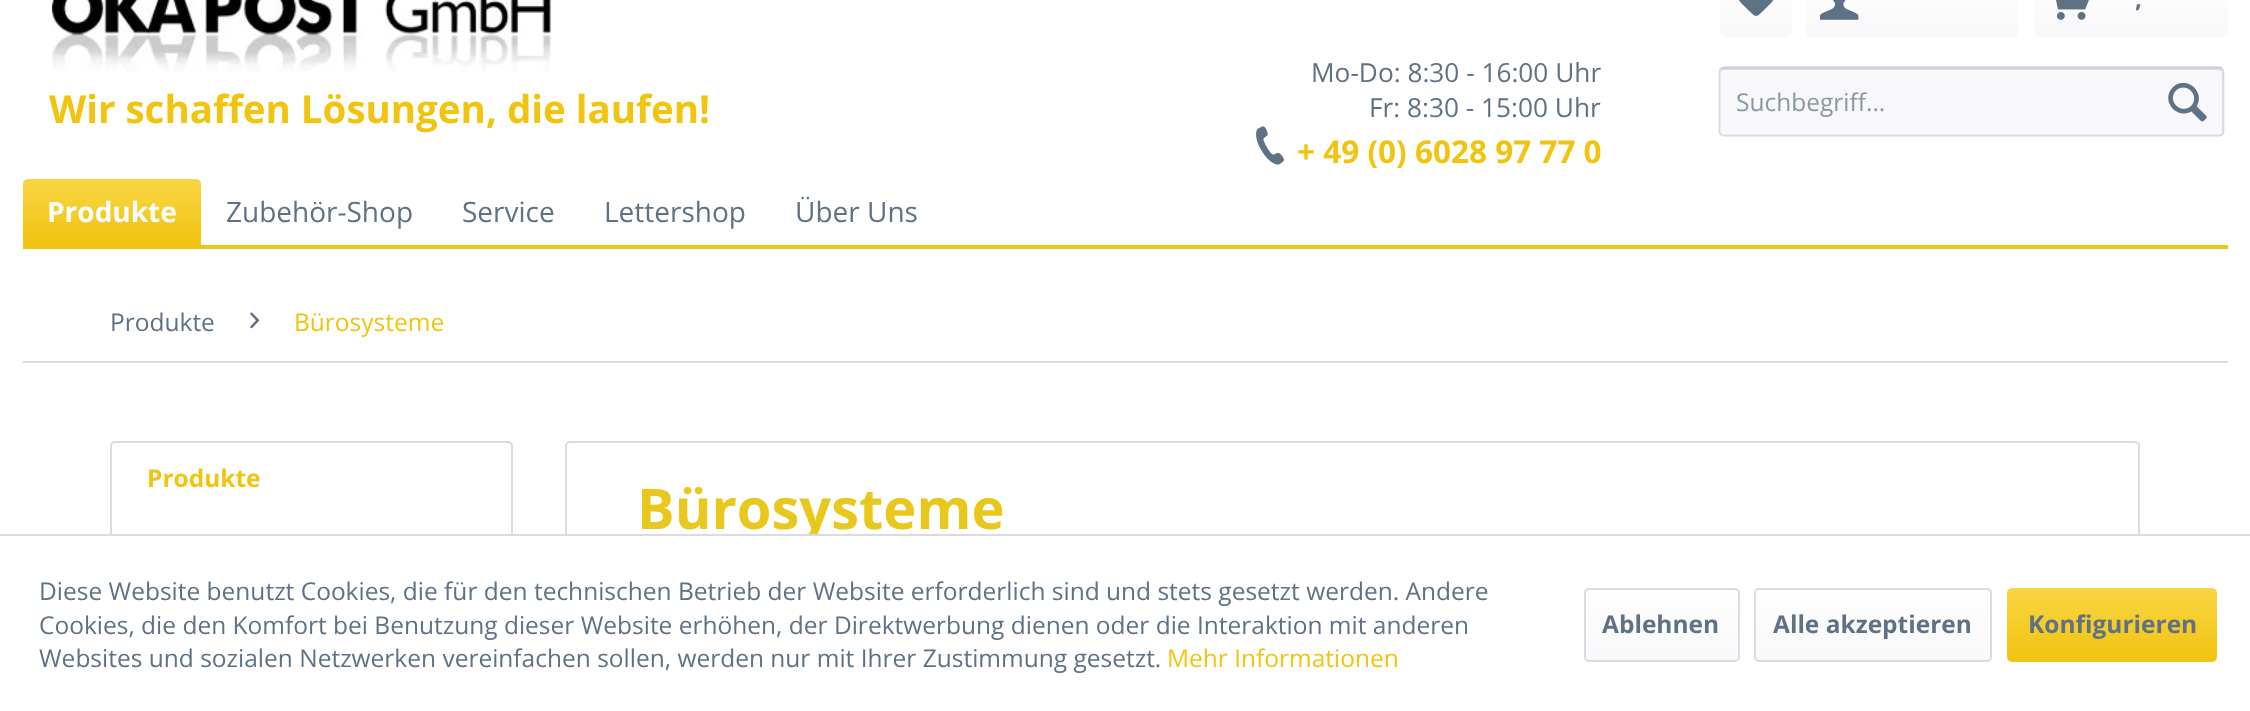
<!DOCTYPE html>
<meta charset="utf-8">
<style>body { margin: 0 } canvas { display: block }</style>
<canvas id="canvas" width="2250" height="711"></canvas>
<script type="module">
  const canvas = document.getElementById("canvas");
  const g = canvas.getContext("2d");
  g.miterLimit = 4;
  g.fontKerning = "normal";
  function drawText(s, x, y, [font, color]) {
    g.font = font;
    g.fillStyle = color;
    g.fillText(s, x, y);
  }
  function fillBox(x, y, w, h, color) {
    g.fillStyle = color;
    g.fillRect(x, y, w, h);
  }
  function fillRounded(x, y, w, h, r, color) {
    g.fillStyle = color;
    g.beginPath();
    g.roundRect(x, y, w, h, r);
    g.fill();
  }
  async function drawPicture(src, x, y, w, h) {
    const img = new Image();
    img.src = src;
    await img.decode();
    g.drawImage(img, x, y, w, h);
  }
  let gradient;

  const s1 = ["bold 38.5px Open Sans", "#F1C40F"];
  const s2 = ["26.25px Open Sans", "#5F7285"];
  const s3 = ["bold 31.5px Open Sans", "#F1C40F"];
  const s4 = ["bold 24.5px Open Sans", "#5F7285"];
  const s5 = ["24.5px Open Sans", "#8798A9"];
  const s6 = ["bold 28px Open Sans", "#FFFFFF"];
  const s7 = ["28px Open Sans", "#5F7285"];
  const s8 = ["24.5px Open Sans", "#5F7285"];
  const s9 = ["24.5px Open Sans", "#F1C40F"];
  const s10 = ["bold 24.5px Open Sans", "#F1C40F"];
  const s11 = ["bold 56px Open Sans", "#E8C81D"];

  fillBox(0, 0, 2250, 711, "#FFFFFF");
  await drawPicture("pic1.png", 51, 0, 502, 72);
  drawText("Wir schaffen Lösungen, die laufen!", 49, 123, s1);
  drawText("Mo-Do: 8:30 - 16:00 Uhr", 1311, 82, s2);
  drawText("Fr: 8:30 - 15:00 Uhr", 1369, 117, s2);
  await drawPicture("pic2.png", 1256, 126, 28, 39);
  drawText("+ 49 (0) 6028 97 77 0", 1297, 163, s3);
  gradient = g.createLinearGradient(1756, -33, 1756, 37);
  gradient.addColorStop(0, "#FFFFFF");
  gradient.addColorStop(1, "#F8F8FA");
  g.fillStyle = gradient;
  g.beginPath();
  g.roundRect(1720, -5, 72, 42, 5);
  g.fill();
  await drawPicture("pic3.png", 1739, 0, 35, 16);
  gradient = g.createLinearGradient(1912, -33, 1912, 37);
  gradient.addColorStop(0, "#FFFFFF");
  gradient.addColorStop(1, "#F8F8FA");
  g.fillStyle = gradient;
  g.beginPath();
  g.roundRect(1806, -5, 212, 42, 5);
  g.fill();
  await drawPicture("pic4.png", 1820, 0, 39, 20);
  gradient = g.createLinearGradient(2131, -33, 2131, 37);
  gradient.addColorStop(0, "#FFFFFF");
  gradient.addColorStop(1, "#F8F8FA");
  g.fillStyle = gradient;
  g.beginPath();
  g.roundRect(2034, -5, 194, 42, 5);
  g.fill();
  await drawPicture("pic5.png", 2056, 0, 33, 20);
  drawText(",", 2135, 7, s4);
  fillRounded(1719, 67, 505, 70, 5, "#F8F8FA");
  g.fillStyle = "#DADAE5";
  g.beginPath();
  g.moveTo(1724, 70);
  g.lineTo(2219, 70);
  g.bezierCurveTo(2221, 70, 2222, 72, 2222, 74);
  g.lineTo(2222, 134);
  g.bezierCurveTo(2223, 133, 2223, 132, 2223, 131);
  g.lineTo(2223, 72);
  g.bezierCurveTo(2223, 70, 2221, 68, 2219, 68);
  g.lineTo(1724, 68);
  g.bezierCurveTo(1722, 68, 1720, 70, 1720, 72);
  g.lineTo(1720, 74);
  g.bezierCurveTo(1720, 72, 1722, 70, 1724, 70);
  g.closePath();
  g.fill();
  g.beginPath();
  g.moveTo(1720.5, 68.5);
  g.lineTo(1724, 67.5);
  g.lineTo(2220.5, 67.5);
  g.lineTo(2222, 68.5);
  g.strokeStyle = "#CBCBDB";
  g.lineWidth = 1.8;
  g.stroke();
  g.beginPath();
  g.moveTo(2222, 68.5);
  g.bezierCurveTo(2223, 69.5, 2223.5, 70.5, 2223.5, 72);
  g.lineTo(2223.5, 131);
  g.bezierCurveTo(2223.5, 132.5, 2223, 133.5, 2222, 134.5);
  g.bezierCurveTo(2221.5, 135, 2220, 135.5, 2219, 135.5);
  g.lineTo(1724, 135.5);
  g.bezierCurveTo(1722.5, 135.5, 1721.5, 135, 1720.5, 134.5);
  g.bezierCurveTo(1720, 133.5, 1719.5, 132.5, 1719.5, 131);
  g.lineTo(1719.5, 72);
  g.bezierCurveTo(1719.5, 70.5, 1720, 69.5, 1720.5, 68.5);
  g.strokeStyle = "#DADAE5";
  g.stroke();
  drawText("Suchbegriff...", 1736, 111, s5);
  await drawPicture("pic6.png", 2168, 82, 39, 40);
  fillBox(23, 245, 2205, 4, "#F1C40F");
  gradient = g.createLinearGradient(112, 179, 112, 245);
  gradient.addColorStop(0, "#F9D544");
  gradient.addColorStop(1, "#F1C40F");
  g.fillStyle = gradient;
  g.beginPath();
  g.roundRect(23, 179, 178, 66, [5, 5, 0, 0]);
  g.fill();
  drawText("Produkte", 47, 222, s6);
  drawText("Zubehör-Shop", 226, 222, s7);
  drawText("Service", 462, 222, s7);
  drawText("Lettershop", 604, 222, s7);
  drawText("Über Uns", 795, 222, s7);
  fillBox(23, 361, 2205, 2, "#DADAE5");
  drawText("Produkte", 110, 331, s8);
  await drawPicture("pic7.png", 250, 312, 10, 17);
  drawText("Bürosysteme", 294, 331, s9);
  g.beginPath();
  g.roundRect(111, 442, 401, 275, 4);
  g.lineWidth = 2;
  g.stroke();
  drawText("Produkte", 147, 487, s10);
  g.beginPath();
  g.roundRect(566, 442, 1573, 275, 4);
  g.stroke();
  drawText("Bürosysteme", 637, 529, s11);
  fillBox(110, 536, 2030, 175, "#FFFFFF");
  fillBox(0, 534, 2250, 2, "#DADAE5");
  drawText("Diese Website benutzt Cookies, die für den technischen Betrieb der Website erforderlich sind und stets gesetzt werden. Andere", 39, 600, s8);
  drawText("Cookies, die den Komfort bei Benutzung dieser Website erhöhen, der Direktwerbung dienen oder die Interaktion mit anderen", 39, 634, s8);
  drawText("Websites und sozialen Netzwerken vereinfachen sollen, werden nur mit Ihrer Zustimmung gesetzt.", 39, 667, s8);
  drawText("Mehr Informationen", 1167, 667, s9);
  gradient = g.createLinearGradient(1662, 590, 1662, 660);
  gradient.addColorStop(0, "#FFFFFF");
  gradient.addColorStop(1, "#F8F8FA");
  g.fillStyle = gradient;
  g.beginPath();
  g.roundRect(1586, 590, 152, 70, 4);
  g.fill();
  g.beginPath();
  g.roundRect(1585, 589, 154, 72, 4);
  g.stroke();
  drawText("Ablehnen", 1602, 633, s4);
  gradient = g.createLinearGradient(1873, 590, 1873, 660);
  gradient.addColorStop(0, "#FFFFFF");
  gradient.addColorStop(1, "#F8F8FA");
  g.fillStyle = gradient;
  g.beginPath();
  g.roundRect(1755, 590, 235, 70, 4);
  g.fill();
  g.beginPath();
  g.roundRect(1755, 589, 236, 72, 4);
  g.stroke();
  drawText("Alle akzeptieren", 1773, 633, s4);
  gradient = g.createLinearGradient(2112, 588, 2112, 662);
  gradient.addColorStop(0, "#F9D544");
  gradient.addColorStop(1, "#F1C40F");
  g.fillStyle = gradient;
  g.beginPath();
  g.roundRect(2007, 588, 210, 74, 5);
  g.fill();
  drawText("Konfigurieren", 2028, 633, s4);
</script>
